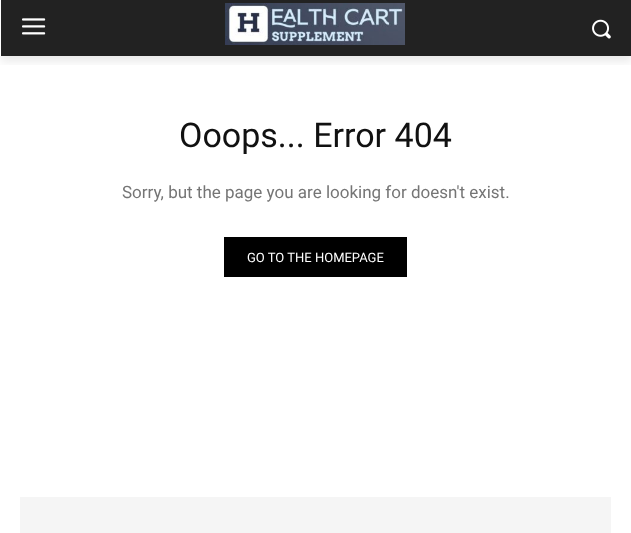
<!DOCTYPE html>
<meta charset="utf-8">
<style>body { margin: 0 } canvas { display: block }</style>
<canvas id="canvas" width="631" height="533"></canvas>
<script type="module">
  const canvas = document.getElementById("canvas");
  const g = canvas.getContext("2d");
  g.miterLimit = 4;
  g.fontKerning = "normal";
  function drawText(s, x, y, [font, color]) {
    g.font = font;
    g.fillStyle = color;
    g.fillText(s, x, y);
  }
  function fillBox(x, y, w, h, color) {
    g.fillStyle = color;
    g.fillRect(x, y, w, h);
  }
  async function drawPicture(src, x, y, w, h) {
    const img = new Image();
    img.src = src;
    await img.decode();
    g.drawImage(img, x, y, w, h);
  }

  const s1 = ["34px Roboto", "#111111"];
  const s2 = ["17px Roboto", "#757575"];
  const s3 = ["13px Roboto", "#FFFFFF"];

  fillBox(0, 0, 631, 533, "#FFFFFF");
  fillBox(1, 0, 630, 56, "#222222");
  await drawPicture("pic1.png", 22, 18, 24, 17);
  await drawPicture("pic2.png", 225, 3, 180, 42);
  await drawPicture("pic3.png", 592, 19, 19, 20);
  g.save();
  g.beginPath();
  g.rect(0, 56, 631, 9);
  g.clip();
  g.fillStyle = "rgba(0, 0, 0, 0.08)";
  g.filter = "blur(4px)";
  g.beginPath();
  g.rect(1, 6, 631, 56);
  g.fill();
  g.filter = "none";
  g.restore();
  drawText("Ooops... Error 404", 179, 147, s1);
  drawText("Sorry, but the page you are looking for doesn't exist.", 122, 198, s2);
  fillBox(224, 237, 183, 40, "#000000");
  drawText("GO TO THE HOMEPAGE", 247, 262, s3);
  fillBox(20, 497, 591, 36, "#F5F5F5");
</script>
